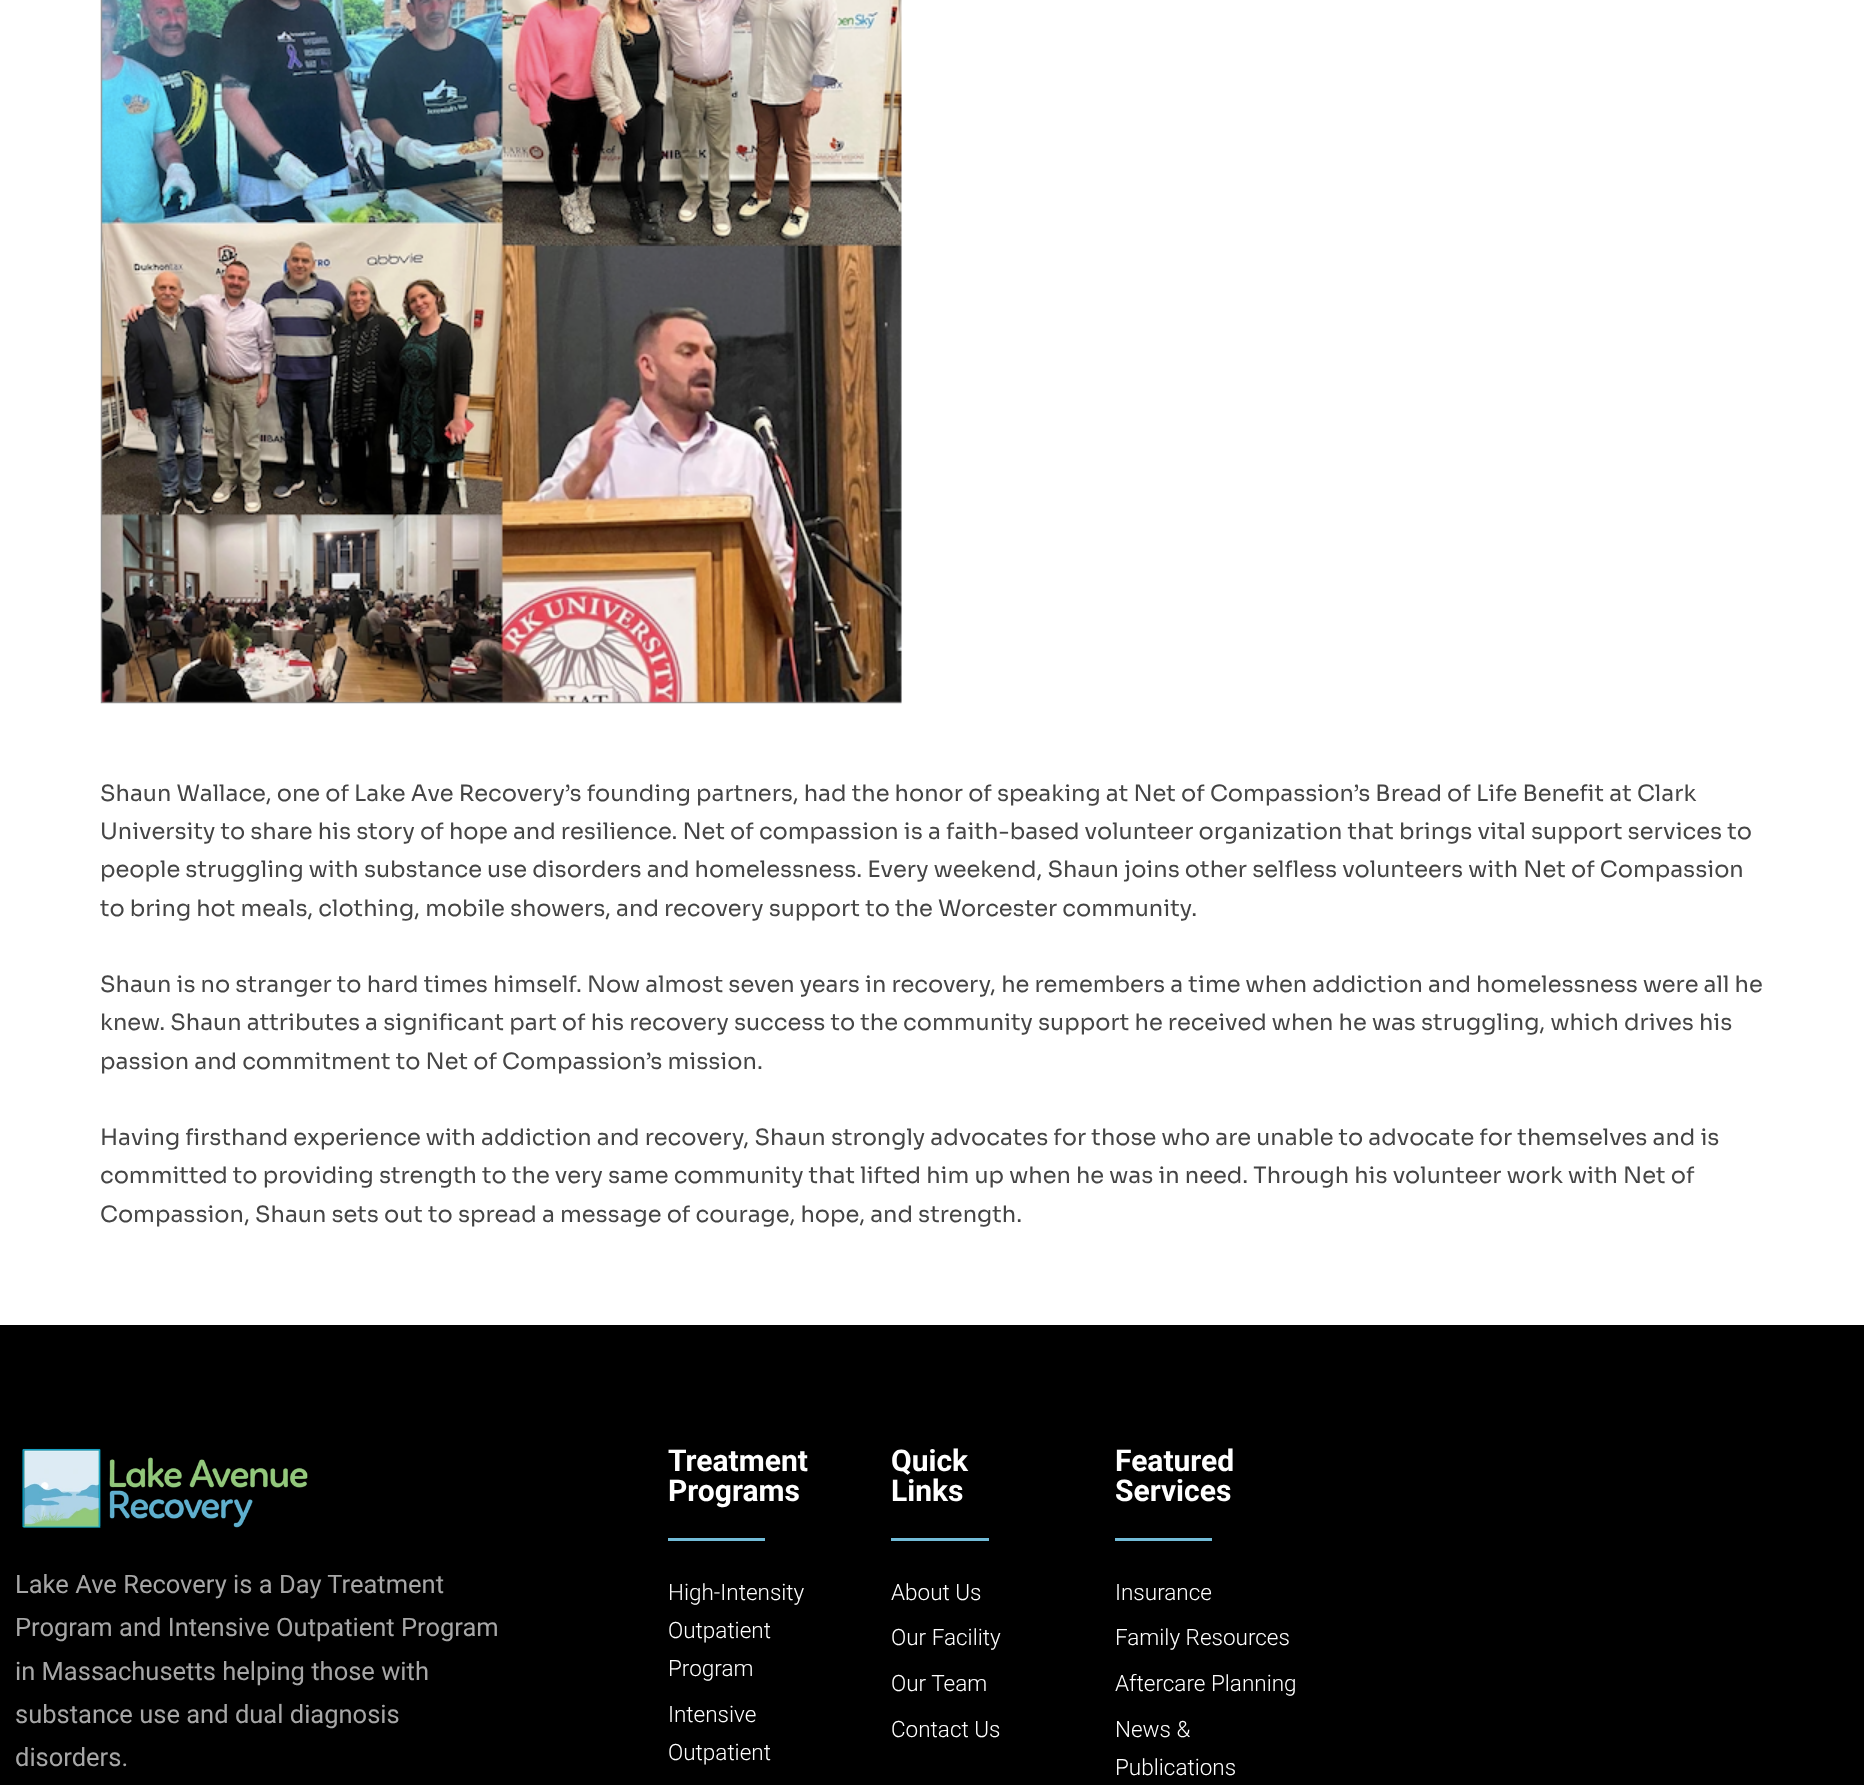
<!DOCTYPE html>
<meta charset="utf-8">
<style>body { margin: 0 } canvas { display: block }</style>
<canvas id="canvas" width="1864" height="1785"></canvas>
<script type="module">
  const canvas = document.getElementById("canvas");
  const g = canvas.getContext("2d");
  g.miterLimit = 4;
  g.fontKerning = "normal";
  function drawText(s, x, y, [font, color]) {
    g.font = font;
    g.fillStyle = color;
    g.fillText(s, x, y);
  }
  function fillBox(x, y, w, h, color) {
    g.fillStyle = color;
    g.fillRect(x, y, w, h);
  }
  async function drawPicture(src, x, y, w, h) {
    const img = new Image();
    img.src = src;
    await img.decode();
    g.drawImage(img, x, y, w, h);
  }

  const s1 = ["22.5px Sora", "#454545"];
  const s2 = ["25.5px Roboto", "#A6A6A6"];
  const s3 = ["bold 30px Roboto", "#FFFFFF"];
  const s4 = ["300 22.5px Roboto", "#FFFFFF"];

  fillBox(0, 0, 1864, 1785, "#FFFFFF");
  await drawPicture("pic1.png", 100, 0, 802, 704);
  drawText("Shaun Wallace, one of Lake Ave Recovery’s founding partners, had the honor of speaking at Net of Compassion’s Bread of Life Benefit at Clark", 100, 801, s1);
  drawText("University to share his story of hope and resilience. Net of compassion is a faith-based volunteer organization that brings vital support services to", 100, 839, s1);
  drawText("people struggling with substance use disorders and homelessness. Every weekend, Shaun joins other selfless volunteers with Net of Compassion", 100, 877, s1);
  drawText("to bring hot meals, clothing, mobile showers, and recovery support to the Worcester community.", 100, 916, s1);
  drawText("Shaun is no stranger to hard times himself. Now almost seven years in recovery, he remembers a time when addiction and homelessness were all he", 100, 992, s1);
  drawText("knew. Shaun attributes a significant part of his recovery success to the community support he received when he was struggling, which drives his", 100, 1030, s1);
  drawText("passion and commitment to Net of Compassion’s mission.", 100, 1069, s1);
  drawText("Having firsthand experience with addiction and recovery, Shaun strongly advocates for those who are unable to advocate for themselves and is", 100, 1145, s1);
  drawText("committed to providing strength to the very same community that lifted him up when he was in need. Through his volunteer work with Net of", 100, 1183, s1);
  drawText("Compassion, Shaun sets out to spread a message of courage, hope, and strength.", 100, 1222, s1);
  fillBox(0, 1325, 1864, 460, "#000000");
  await drawPicture("pic2.png", 22, 1448, 286, 80);
  drawText("Lake Ave Recovery is a Day Treatment", 15, 1593, s2);
  drawText("Program and Intensive Outpatient Program", 15, 1636, s2);
  drawText("in Massachusetts helping those with", 15, 1680, s2);
  drawText("substance use and dual diagnosis", 15, 1723, s2);
  drawText("disorders.", 15, 1766, s2);
  drawText("Treatment", 668, 1471, s3);
  drawText("Programs", 668, 1501, s3);
  fillBox(668, 1538, 97, 3, "#72BBD7");
  drawText("High-Intensity", 668, 1600, s4);
  drawText("Outpatient", 668, 1638, s4);
  drawText("Program", 668, 1676, s4);
  drawText("Intensive", 668, 1722, s4);
  drawText("Outpatient", 668, 1760, s4);
  drawText("Quick", 891, 1471, s3);
  drawText("Links", 891, 1501, s3);
  fillBox(891, 1538, 98, 3, "#72BBD7");
  drawText("About Us", 891, 1600, s4);
  drawText("Our Facility", 891, 1645, s4);
  drawText("Our Team", 891, 1691, s4);
  drawText("Contact Us", 891, 1737, s4);
  drawText("Featured", 1115, 1471, s3);
  drawText("Services", 1115, 1501, s3);
  fillBox(1115, 1538, 97, 3, "#72BBD7");
  drawText("Insurance", 1115, 1600, s4);
  drawText("Family Resources", 1115, 1645, s4);
  drawText("Aftercare Planning", 1115, 1691, s4);
  drawText("News &", 1115, 1737, s4);
  drawText("Publications", 1115, 1775, s4);
</script>
